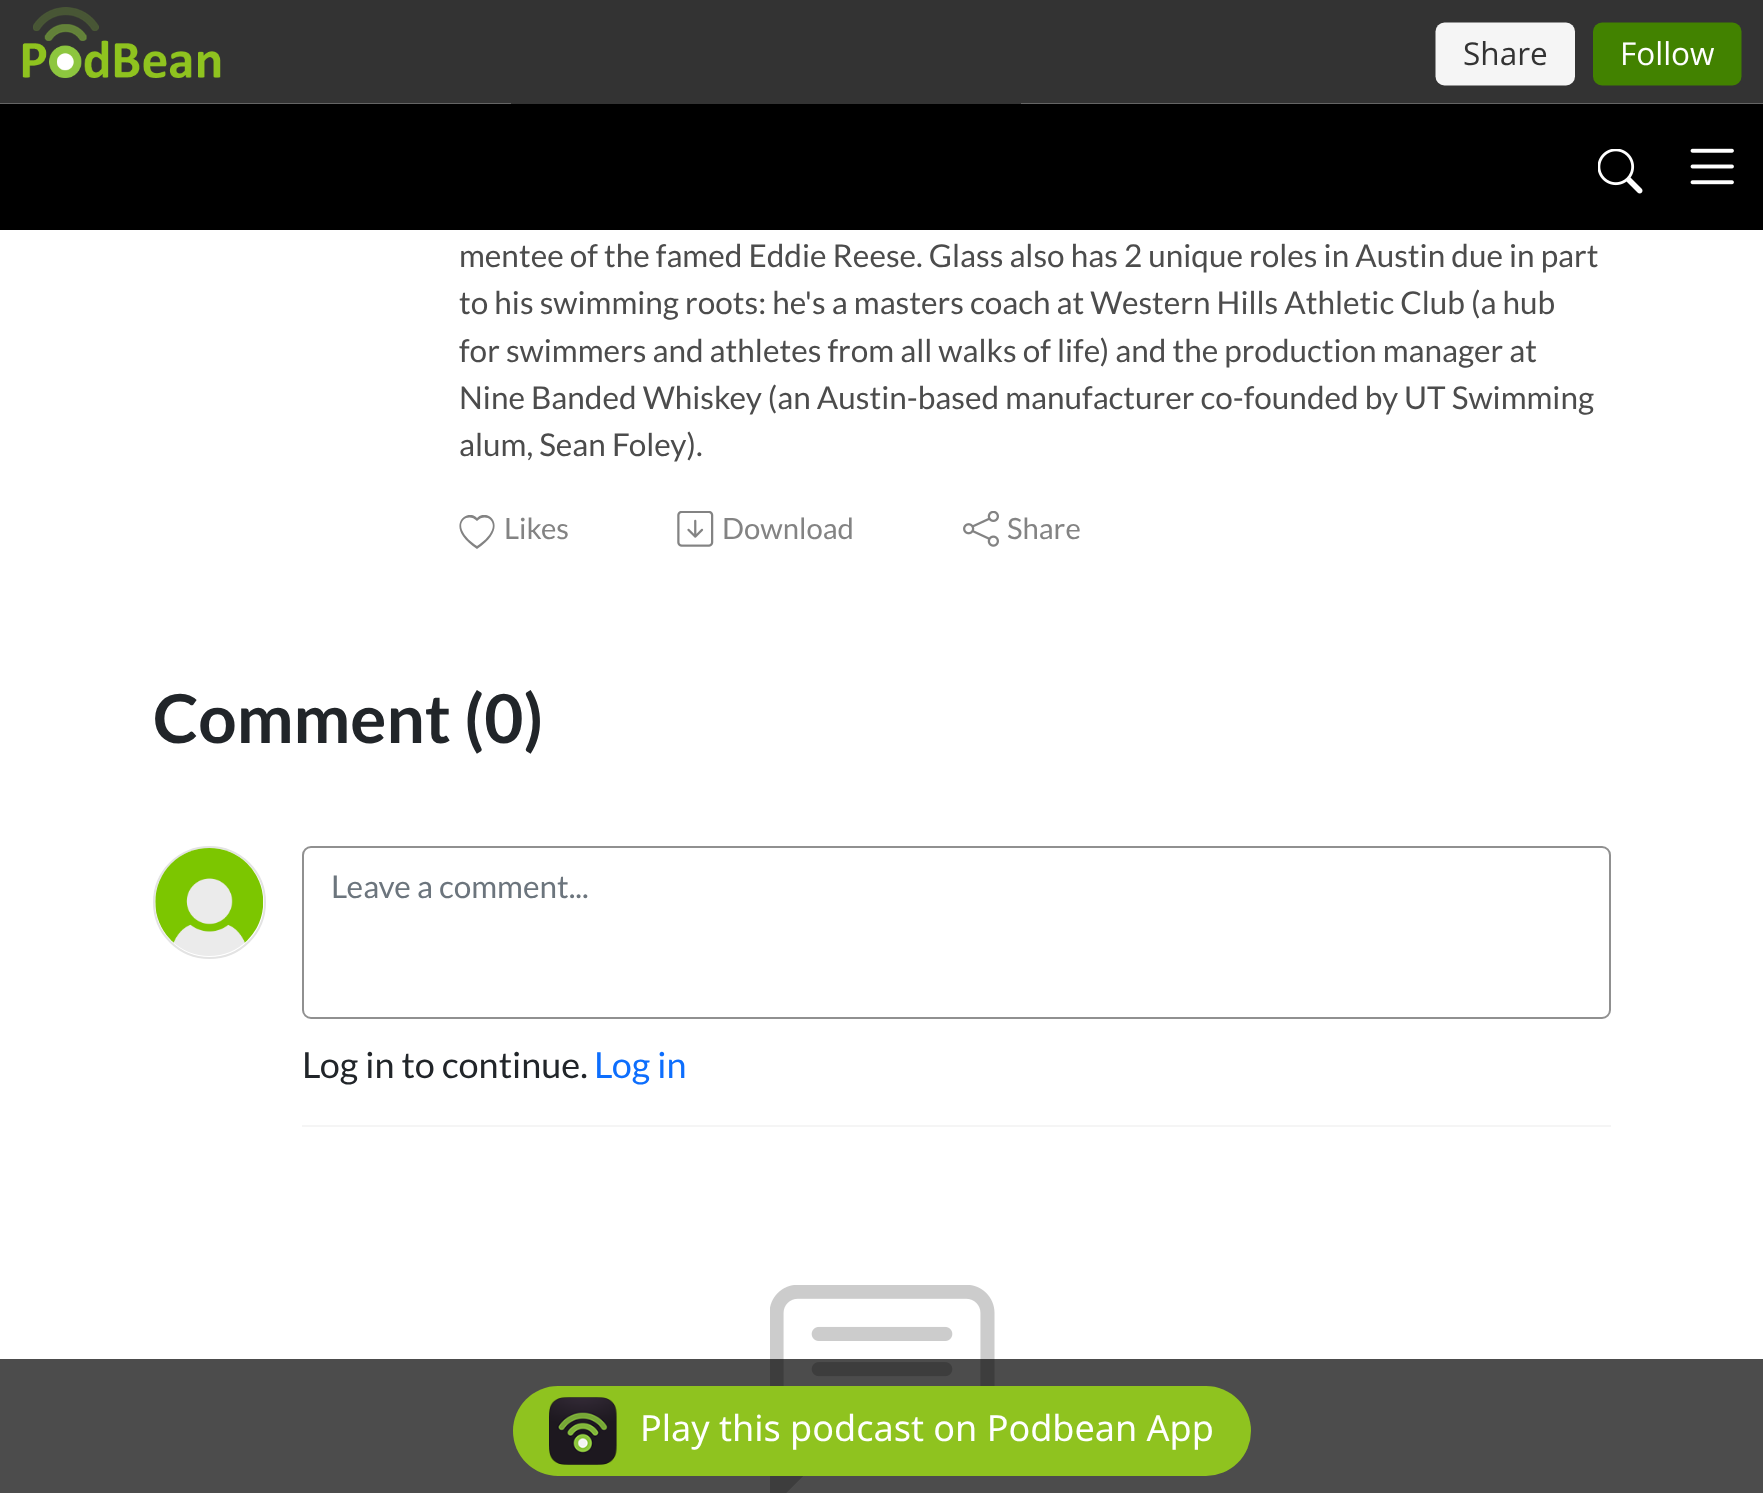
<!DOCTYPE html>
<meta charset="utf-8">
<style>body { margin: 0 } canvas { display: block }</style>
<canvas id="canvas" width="1763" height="1493"></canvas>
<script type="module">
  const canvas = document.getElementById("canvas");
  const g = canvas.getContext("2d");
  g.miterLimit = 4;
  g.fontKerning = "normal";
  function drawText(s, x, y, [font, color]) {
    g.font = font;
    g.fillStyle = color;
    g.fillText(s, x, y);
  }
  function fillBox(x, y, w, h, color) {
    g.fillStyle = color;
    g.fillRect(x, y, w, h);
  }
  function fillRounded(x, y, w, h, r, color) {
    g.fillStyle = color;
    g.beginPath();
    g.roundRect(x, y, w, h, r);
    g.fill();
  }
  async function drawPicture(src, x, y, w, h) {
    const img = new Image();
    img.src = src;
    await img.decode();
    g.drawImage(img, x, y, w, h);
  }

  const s1 = ["31.5px Lato", "#4C4C4C"];
  const s2 = ["29.25px Lato", "#838383"];
  const s3 = ["bold 67.5px Lato", "#212529"];
  const s4 = ["31.5px Lato", "#6C757D"];
  const s5 = ["36px Lato", "#212529"];
  const s6 = ["36px Lato", "#0D6EFD"];
  const s7 = ["36px Noto Sans", "#FFFFFF"];

  fillBox(0, 0, 1763, 1493, "#FFFFFF");
  fillBox(0, 0, 1763, 7, "#333333");
  await drawPicture("pic1.png", 0, 7, 1763, 97);
  fillBox(0, 104, 1763, 126, "#000000");
  await drawPicture("pic2.png", 1598, 149, 45, 45);
  await drawPicture("pic3.png", 1690, 148, 44, 37);
  drawText("mentee of the famed Eddie Reese. Glass also has 2 unique roles in Austin due in part", 459, 267, s1);
  drawText("to his swimming roots: he's a masters coach at Western Hills Athletic Club (a hub", 459, 314, s1);
  drawText("for swimmers and athletes from all walks of life) and the production manager at", 459, 362, s1);
  drawText("Nine Banded Whiskey (an Austin-based manufacturer co-founded by UT Swimming", 459, 409, s1);
  drawText("alum, Sean Foley).", 459, 456, s1);
  g.save();
  g.beginPath();
  g.rect(455, 515, 45, 36);
  g.clip();
  g.fillStyle = "#838383";
  g.beginPath();
  g.moveTo(477, 521);
  g.bezierCurveTo(469, 513, 458, 520, 462, 530);
  g.bezierCurveTo(465, 537, 471, 542, 477, 546);
  g.bezierCurveTo(483, 542, 489, 537, 492, 530);
  g.bezierCurveTo(496, 520, 485, 513, 477, 521);
  g.closePath();
  g.moveTo(477, 549);
  g.bezierCurveTo(443, 527, 467, 507, 477, 518);
  g.bezierCurveTo(487, 507, 511, 526, 477, 549);
  g.closePath();
  g.fill();
  g.restore();
  drawText("Likes", 504, 539, s2);
  await drawPicture("pic4.png", 677, 511, 37, 36);
  drawText("Download", 722, 539, s2);
  await drawPicture("pic5.png", 963, 511, 36, 36);
  drawText("Share", 1007, 539, s2);
  drawText("Comment (0)", 153, 743, s3);
  g.beginPath();
  g.arc(209.5, 902.5, 55.5, 0, Math.PI * 2);
  g.strokeStyle = "#E3E3E3";
  g.lineWidth = 2;
  g.stroke();
  await drawPicture("pic6.png", 155, 848, 109, 108);
  fillBox(302, 1125, 1309, 2, "#F5F5F5");
  g.beginPath();
  g.roundRect(303, 847, 1307, 171, 8);
  g.strokeStyle = "#909090";
  g.stroke();
  drawText("Leave a comment...", 331, 898, s4);
  drawText("Log in to continue.", 302, 1078, s5);
  drawText("Log in", 594, 1078, s6);
  await drawPicture("pic7.png", 770, 1285, 225, 208);
  fillBox(0, 1359, 1763, 134, "rgba(0, 0, 0, 0.7)");
  fillRounded(513, 1386, 738, 90, 45, "#8FC31F");
  await drawPicture("pic8.png", 549, 1397, 68, 68);
  drawText("Play this podcast on Podbean App", 640, 1441, s7);
</script>
